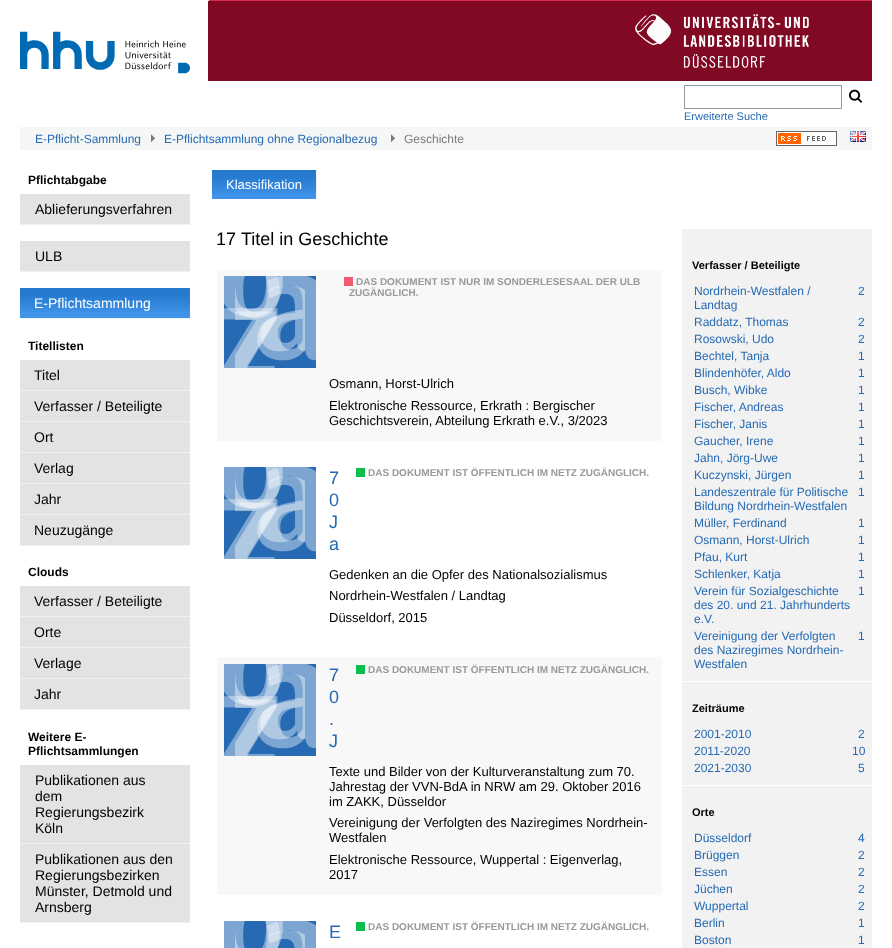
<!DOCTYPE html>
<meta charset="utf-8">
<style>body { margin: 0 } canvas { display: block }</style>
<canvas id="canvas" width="892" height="948"></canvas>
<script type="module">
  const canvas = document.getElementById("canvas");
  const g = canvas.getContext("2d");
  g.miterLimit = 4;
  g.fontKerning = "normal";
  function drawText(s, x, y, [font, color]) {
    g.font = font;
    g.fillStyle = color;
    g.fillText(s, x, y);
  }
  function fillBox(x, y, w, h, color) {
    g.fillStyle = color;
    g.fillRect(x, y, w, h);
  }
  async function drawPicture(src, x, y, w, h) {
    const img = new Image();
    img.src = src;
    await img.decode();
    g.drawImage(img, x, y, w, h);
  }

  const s1 = ["11px Liberation Sans", "#266AB3"];
  const s2 = ["12px Liberation Sans", "#266AB3"];
  const s3 = ["12px Liberation Sans", "#7B7B7B"];
  const s4 = ["bold 12px Liberation Sans", "#000000"];
  const s5 = ["14px Liberation Sans", "#000000"];
  const s6 = ["14px Liberation Sans", "#FFFFFF"];
  const s7 = ["13px Liberation Sans", "#FFFFFF"];
  const s8 = ["18px Liberation Sans", "#000000"];
  const s9 = ["bold 10px Liberation Sans", "#999999"];
  const s10 = ["13px Liberation Sans", "#000000"];
  const s11 = ["18px Liberation Sans", "#266AB3"];
  const s12 = ["bold 11px Liberation Sans", "#000000"];

  fillBox(0, 0, 892, 948, "#FFFFFF");
  await drawPicture("pic1.png", 209, 0, 663, 1);
  await drawPicture("pic2.png", 20, 31, 170, 43);
  fillBox(208, 1, 664, 80, "#820924");
  await drawPicture("pic3.png", 635, 14, 174, 54);
  g.strokeStyle = "#99999A";
  g.strokeRect(684.5, 85.5, 157, 23);
  await drawPicture("pic4.png", 849, 89, 14, 14);
  drawText("Erweiterte Suche", 684, 120, s1);
  fillBox(20, 127, 852, 23, "#F5F6F6");
  drawText("E-Pflicht-Sammlung", 35, 143, s2);
  await drawPicture("pic5.png", 151, 134, 4, 8);
  drawText("E-Pflichtsammlung ohne Regionalbezug", 164, 143, s2);
  await drawPicture("pic5.png", 391, 134, 4, 8);
  drawText("Geschichte", 404, 143, s3);
  await drawPicture("pic6.png", 776, 131, 61, 15);
  await drawPicture("pic7.png", 850, 131, 16, 11);
  drawText("Pflichtabgabe", 28, 184, s4);
  fillBox(20, 194, 170, 30, "#E2E3E3");
  fillBox(20, 224, 170, 1, "#F2F2F2");
  drawText("Ablieferungsverfahren", 35, 214, s5);
  fillBox(20, 241, 170, 30, "#E2E3E3");
  fillBox(20, 271, 170, 1, "#F2F2F2");
  drawText("ULB", 35, 261, s5);
  fillBox(20, 312, 170, 6, "#4093EA");
  await drawPicture("pic8.png", 20, 288, 170, 24);
  fillBox(20, 318, 170, 1, "#F2F2F2");
  drawText("E-Pflichtsammlung", 34, 308, s6);
  drawText("Titellisten", 28, 350, s4);
  fillBox(20, 360, 170, 30, "#E2E3E3");
  fillBox(20, 390, 170, 1, "#F2F2F2");
  drawText("Titel", 34, 380, s5);
  fillBox(20, 391, 170, 30, "#E2E3E3");
  fillBox(20, 421, 170, 1, "#F2F2F2");
  drawText("Verfasser / Beteiligte", 34, 411, s5);
  fillBox(20, 422, 170, 30, "#E2E3E3");
  fillBox(20, 452, 170, 1, "#F2F2F2");
  drawText("Ort", 34, 442, s5);
  fillBox(20, 453, 170, 30, "#E2E3E3");
  fillBox(20, 483, 170, 1, "#F2F2F2");
  drawText("Verlag", 34, 473, s5);
  fillBox(20, 484, 170, 30, "#E2E3E3");
  fillBox(20, 514, 170, 1, "#F2F2F2");
  drawText("Jahr", 34, 504, s5);
  fillBox(20, 515, 170, 30, "#E2E3E3");
  fillBox(20, 545, 170, 1, "#F2F2F2");
  drawText("Neuzugänge", 34, 535, s5);
  drawText("Clouds", 28, 576, s4);
  fillBox(20, 586, 170, 30, "#E2E3E3");
  fillBox(20, 616, 170, 1, "#F2F2F2");
  drawText("Verfasser / Beteiligte", 34, 606, s5);
  fillBox(20, 617, 170, 30, "#E2E3E3");
  fillBox(20, 647, 170, 1, "#F2F2F2");
  drawText("Orte", 34, 637, s5);
  fillBox(20, 648, 170, 30, "#E2E3E3");
  fillBox(20, 678, 170, 1, "#F2F2F2");
  drawText("Verlage", 34, 668, s5);
  fillBox(20, 679, 170, 30, "#E2E3E3");
  fillBox(20, 709, 170, 1, "#F2F2F2");
  drawText("Jahr", 34, 699, s5);
  drawText("Weitere E-", 28, 741, s4);
  drawText("Pflichtsammlungen", 28, 755, s4);
  fillBox(20, 765, 170, 78, "#E2E3E3");
  fillBox(20, 843, 170, 1, "#F2F2F2");
  drawText("Publikationen aus", 35, 785, s5);
  drawText("dem", 35, 801, s5);
  drawText("Regierungsbezirk", 35, 817, s5);
  drawText("Köln", 35, 833, s5);
  fillBox(20, 844, 170, 78, "#E2E3E3");
  fillBox(20, 922, 170, 1, "#F2F2F2");
  drawText("Publikationen aus den", 35, 864, s5);
  drawText("Regierungsbezirken", 35, 880, s5);
  drawText("Münster, Detmold und", 35, 896, s5);
  drawText("Arnsberg", 35, 912, s5);
  fillBox(316, 170, 1, 29, "#F2F2F2");
  fillBox(212, 194, 104, 5, "#4093EA");
  await drawPicture("pic9.png", 212, 170, 104, 24);
  drawText("Klassifikation", 226, 189, s7);
  drawText("17", 216, 245, s8);
  drawText("Titel in Geschichte", 241, 245, s8);
  fillBox(217, 270, 445, 171, "#F8F8F8");
  fillBox(224, 276, 92, 92, "#266AB3");
  await drawPicture("pic10.png", 224, 276, 92, 92);
  await drawPicture("pic11.png", 235, 276, 70, 92);
  fillBox(344, 277, 9, 9, "#F15B6E");
  drawText("DAS DOKUMENT IST NUR IM SONDERLESESAAL DER ULB", 356, 285, s9);
  drawText("ZUGÄNGLICH.", 349, 296, s9);
  drawText("Osmann, Horst-Ulrich", 329, 388, s10);
  drawText("Elektronische Ressource, Erkrath : Bergischer", 329, 410, s10);
  drawText("Geschichtsverein, Abteilung Erkrath e.V., 3/2023", 329, 425, s10);
  fillBox(224, 467, 92, 92, "#266AB3");
  await drawPicture("pic10.png", 224, 467, 92, 92);
  await drawPicture("pic11.png", 235, 467, 70, 92);
  fillBox(356, 468, 9, 9, "#0BBE49");
  drawText("DAS DOKUMENT IST ÖFFENTLICH IM NETZ ZUGÄNGLICH.", 368, 476, s9);
  drawText("7", 329, 484, s11);
  drawText("0", 329, 506, s11);
  drawText("J", 329, 528, s11);
  drawText("a", 329, 550, s11);
  drawText("Gedenken an die Opfer des Nationalsozialismus", 329, 579, s10);
  drawText("Nordrhein-Westfalen / Landtag", 329, 600, s10);
  drawText("Düsseldorf, 2015", 329, 622, s10);
  fillBox(217, 657, 445, 238, "#F8F8F8");
  fillBox(224, 664, 92, 92, "#266AB3");
  await drawPicture("pic10.png", 224, 664, 92, 92);
  await drawPicture("pic11.png", 235, 664, 70, 92);
  fillBox(356, 665, 9, 9, "#0BBE49");
  drawText("DAS DOKUMENT IST ÖFFENTLICH IM NETZ ZUGÄNGLICH.", 368, 673, s9);
  drawText("7", 329, 681, s11);
  drawText("0", 329, 703, s11);
  drawText(".", 329, 725, s11);
  drawText("J", 329, 747, s11);
  drawText("Texte und Bilder von der Kulturveranstaltung zum 70.", 329, 776, s10);
  drawText("Jahrestag der VVN-BdA in NRW am 29. Oktober 2016", 329, 791, s10);
  drawText("im ZAKK, Düsseldor", 329, 806, s10);
  drawText("Vereinigung der Verfolgten des Naziregimes Nordrhein-", 329, 827, s10);
  drawText("Westfalen", 329, 842, s10);
  drawText("Elektronische Ressource, Wuppertal : Eigenverlag,", 329, 864, s10);
  drawText("2017", 329, 879, s10);
  fillBox(224, 921, 92, 27, "#266AB3");
  await drawPicture("pic12.png", 224, 921, 92, 27);
  await drawPicture("pic13.png", 235, 921, 70, 27);
  drawText("E", 329, 938, s11);
  fillBox(356, 922, 9, 9, "#0BBE49");
  drawText("DAS DOKUMENT IST ÖFFENTLICH IM NETZ ZUGÄNGLICH.", 368, 930, s9);
  fillBox(682, 229, 190, 719, "#F2F2F2");
  drawText("Verfasser / Beteiligte", 692, 269, s12);
  fillBox(682, 681, 190, 1, "#FFFFFF");
  drawText("Nordrhein-Westfalen /", 694, 295, s2);
  drawText("2", 858, 295, s2);
  drawText("Landtag", 694, 309, s2);
  drawText("Raddatz, Thomas", 694, 326, s2);
  drawText("2", 858, 326, s2);
  drawText("Rosowski, Udo", 694, 343, s2);
  drawText("2", 858, 343, s2);
  drawText("Bechtel, Tanja", 694, 360, s2);
  drawText("1", 858, 360, s2);
  drawText("Blindenhöfer, Aldo", 694, 377, s2);
  drawText("1", 858, 377, s2);
  drawText("Busch, Wibke", 694, 394, s2);
  drawText("1", 858, 394, s2);
  drawText("Fischer, Andreas", 694, 411, s2);
  drawText("1", 858, 411, s2);
  drawText("Fischer, Janis", 694, 428, s2);
  drawText("1", 858, 428, s2);
  drawText("Gaucher, Irene", 694, 445, s2);
  drawText("1", 858, 445, s2);
  drawText("Jahn, Jörg-Uwe", 694, 462, s2);
  drawText("1", 858, 462, s2);
  drawText("Kuczynski, Jürgen", 694, 479, s2);
  drawText("1", 858, 479, s2);
  drawText("Landeszentrale für Politische", 694, 496, s2);
  drawText("1", 858, 496, s2);
  drawText("Bildung Nordrhein-Westfalen", 694, 510, s2);
  drawText("Müller, Ferdinand", 694, 527, s2);
  drawText("1", 858, 527, s2);
  drawText("Osmann, Horst-Ulrich", 694, 544, s2);
  drawText("1", 858, 544, s2);
  drawText("Pfau, Kurt", 694, 561, s2);
  drawText("1", 858, 561, s2);
  drawText("Schlenker, Katja", 694, 578, s2);
  drawText("1", 858, 578, s2);
  drawText("Verein für Sozialgeschichte", 694, 595, s2);
  drawText("1", 858, 595, s2);
  drawText("des 20. und 21. Jahrhunderts", 694, 609, s2);
  drawText("e.V.", 694, 623, s2);
  drawText("Vereinigung der Verfolgten", 694, 640, s2);
  drawText("1", 858, 640, s2);
  drawText("des Naziregimes Nordrhein-", 694, 654, s2);
  drawText("Westfalen", 694, 668, s2);
  drawText("Zeiträume", 692, 712, s12);
  fillBox(682, 785, 190, 1, "#FFFFFF");
  drawText("2001-2010", 694, 738, s2);
  drawText("2", 858, 738, s2);
  drawText("2011-2020", 694, 755, s2);
  drawText("10", 852, 755, s2);
  drawText("2021-2030", 694, 772, s2);
  drawText("5", 858, 772, s2);
  drawText("Orte", 692, 816, s12);
  drawText("Düsseldorf", 694, 842, s2);
  drawText("4", 858, 842, s2);
  drawText("Brüggen", 694, 859, s2);
  drawText("2", 858, 859, s2);
  drawText("Essen", 694, 876, s2);
  drawText("2", 858, 876, s2);
  drawText("Jüchen", 694, 893, s2);
  drawText("2", 858, 893, s2);
  drawText("Wuppertal", 694, 910, s2);
  drawText("2", 858, 910, s2);
  drawText("Berlin", 694, 927, s2);
  drawText("1", 858, 927, s2);
  drawText("Boston", 694, 944, s2);
  drawText("1", 858, 944, s2);
</script>
